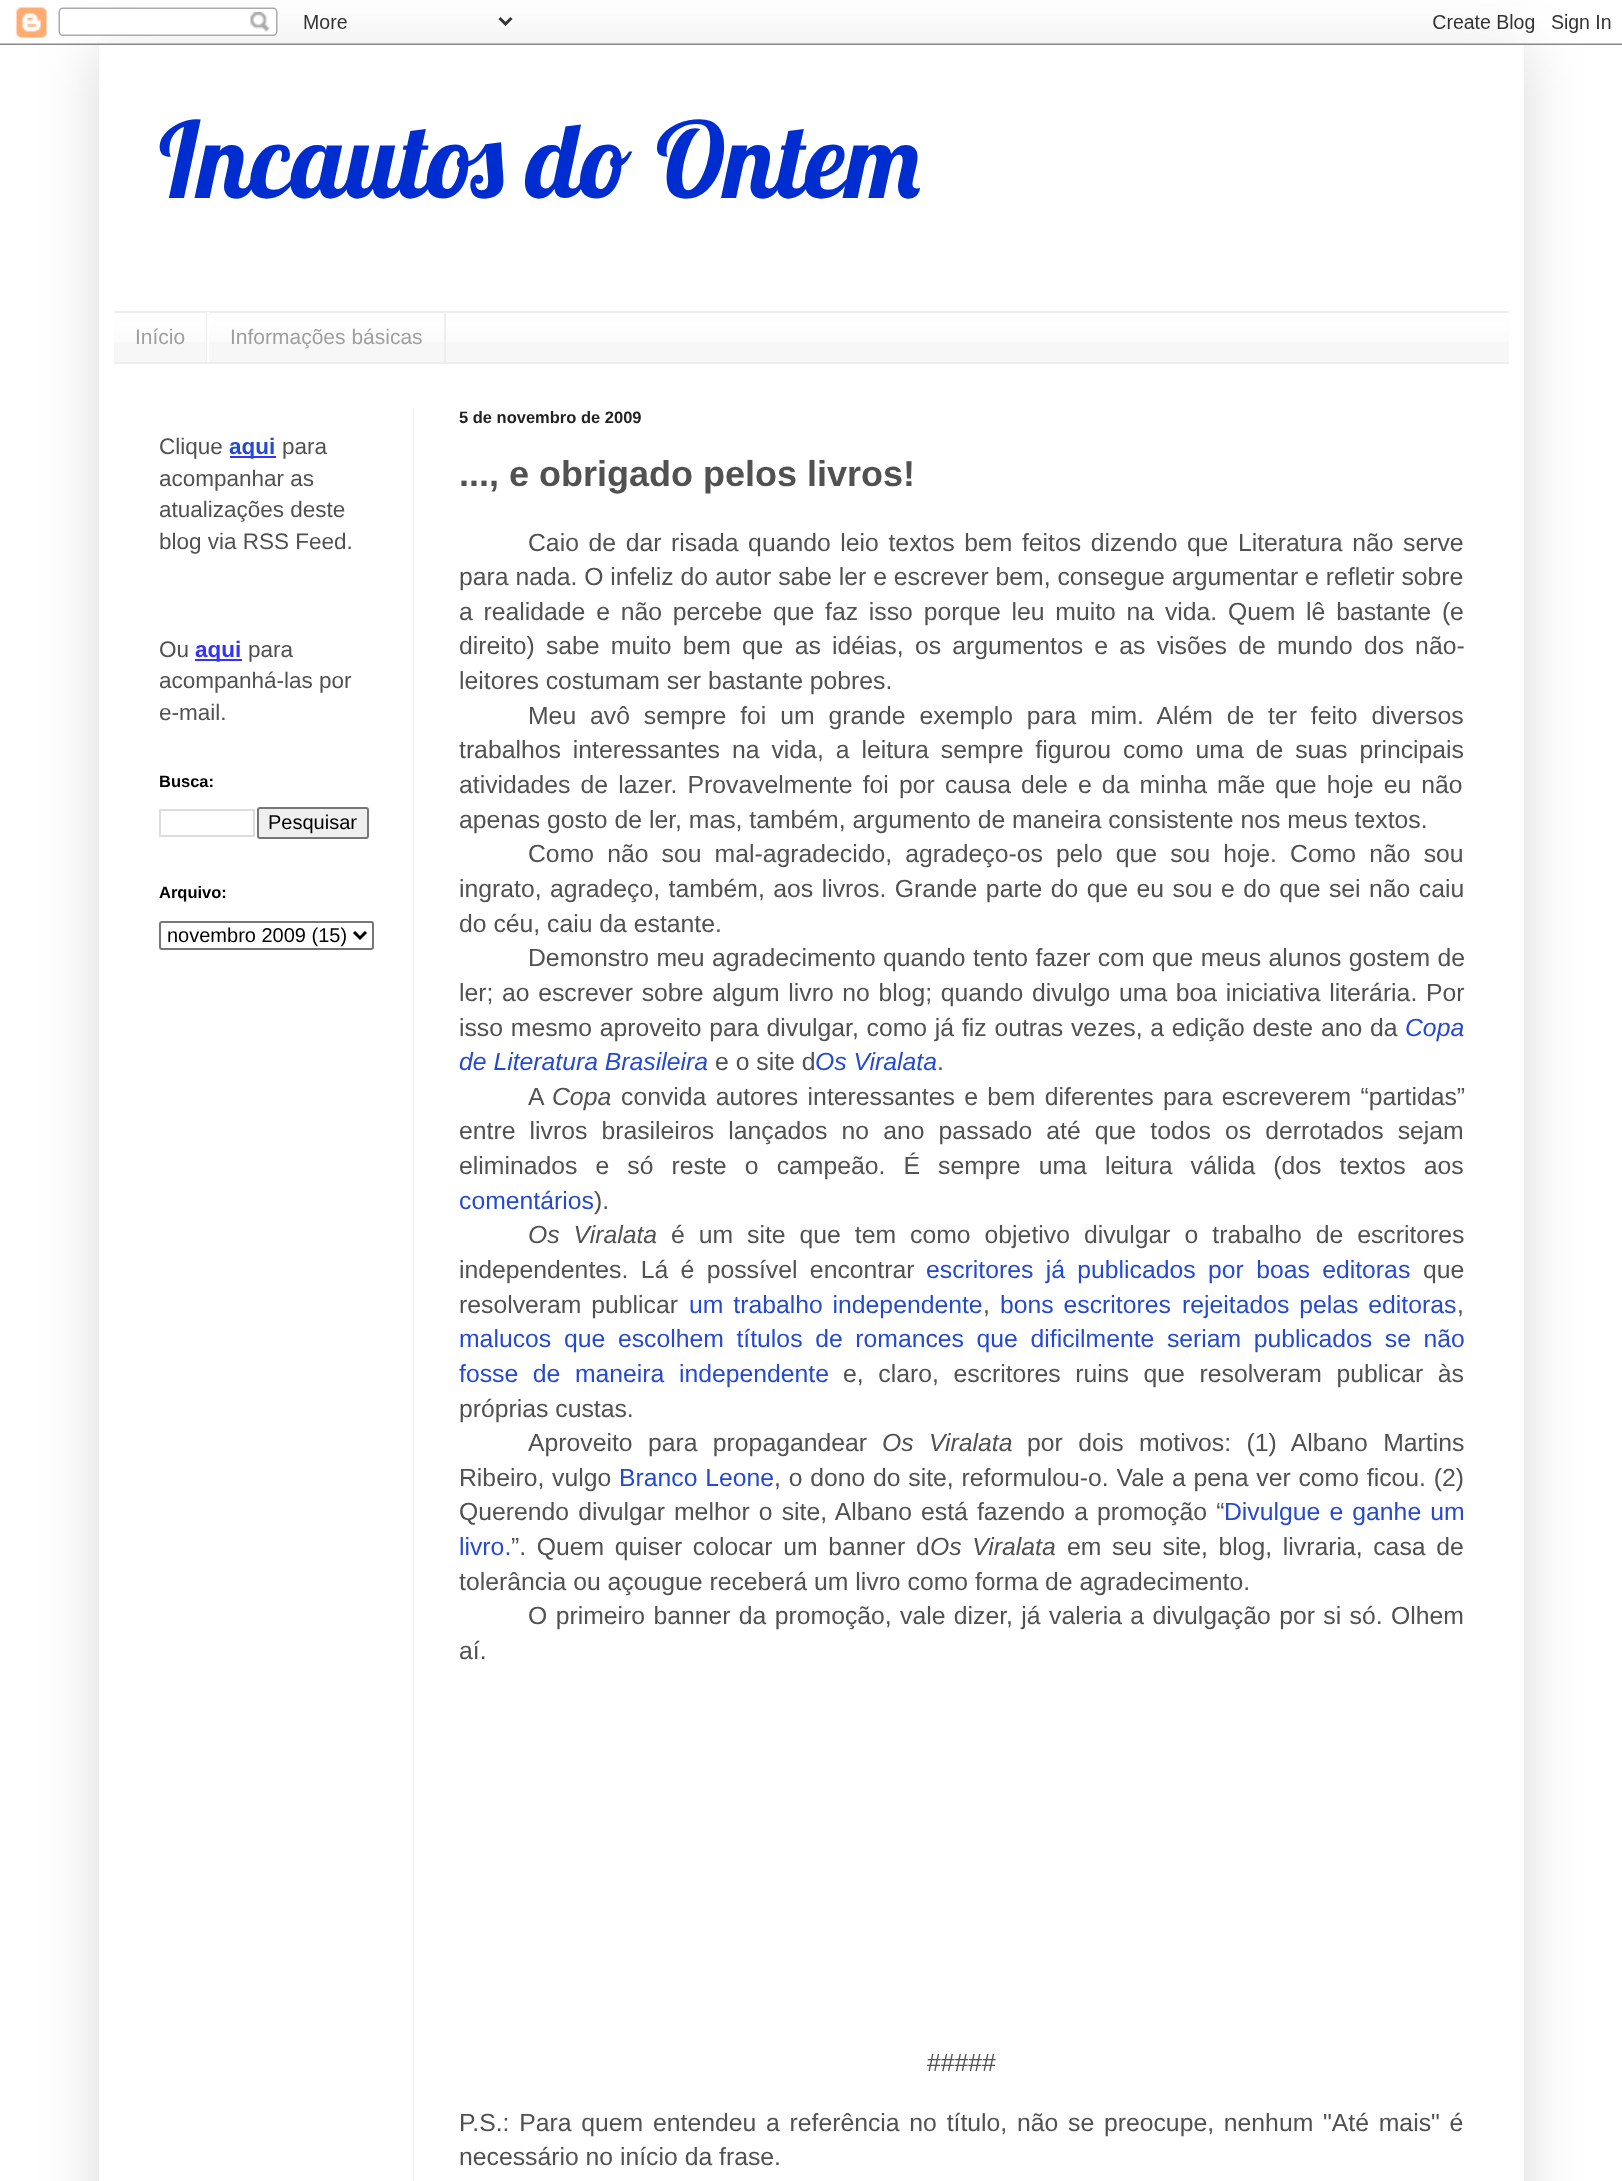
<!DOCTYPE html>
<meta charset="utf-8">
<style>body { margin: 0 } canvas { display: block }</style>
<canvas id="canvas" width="1622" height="2181"></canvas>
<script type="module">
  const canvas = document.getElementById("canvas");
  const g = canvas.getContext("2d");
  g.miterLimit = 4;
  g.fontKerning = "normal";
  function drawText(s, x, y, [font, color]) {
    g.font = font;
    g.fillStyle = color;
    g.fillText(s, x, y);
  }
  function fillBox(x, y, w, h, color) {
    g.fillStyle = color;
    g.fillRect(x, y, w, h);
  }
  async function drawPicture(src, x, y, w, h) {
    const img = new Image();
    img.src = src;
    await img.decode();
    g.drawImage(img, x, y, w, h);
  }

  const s1 = ["105px Lobster", "#002DCF"];
  const s2 = ["21px Liberation Sans", "#9F9F9F"];
  const s3 = ["22.5px Liberation Sans", "#515151"];
  const s4 = ["bold 22.5px Liberation Sans", "#254ACF"];
  const s5 = ["bold 22.5px Liberation Sans", "#3333FF"];
  const s6 = ["bold 16.5px Liberation Sans", "#000000"];
  const s7 = ["20px Liberation Sans", "#000000"];
  const s8 = ["bold 16.5px Liberation Sans", "#222222"];
  const s9 = ["bold 36px Liberation Sans", "#515151"];
  const s10 = ["24.75px Liberation Sans", "#515151"];
  const s11 = ["italic 24.75px Liberation Sans", "#254ACF"];
  const s12 = ["italic 24.75px Liberation Sans", "#515151"];
  const s13 = ["24.75px Liberation Sans", "#254ACF"];

  fillBox(0, 0, 1622, 2181, "#FFFFFF");
  g.save();
  g.beginPath();
  g.moveTo(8, 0);
  g.lineTo(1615, 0);
  g.lineTo(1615, 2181);
  g.lineTo(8, 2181);
  g.closePath();
  g.moveTo(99, 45);
  g.lineTo(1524, 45);
  g.lineTo(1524, 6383);
  g.lineTo(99, 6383);
  g.closePath();
  g.clip("evenodd");
  g.fillStyle = "rgba(0, 0, 0, 0.15)";
  g.filter = "blur(30px)";
  g.beginPath();
  g.rect(99, 45, 1425, 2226);
  g.fill();
  g.filter = "none";
  g.restore();
  await drawPicture("pic1.png", 0, 7, 1622, 38);
  drawText("Incautos do Ontem", 159, 198, s1);
  fillBox(114, 313, 1395, 49, "#F7F7F7");
  await drawPicture("pic2.png", 114, 313, 1395, 29);
  fillBox(114, 311, 1395, 2, "#EEEEEE");
  fillBox(114, 362, 1395, 2, "#EEEEEE");
  fillBox(206, 312, 1, 50, "#EEEEEE");
  drawText("Início", 135, 344, s2);
  fillBox(444, 312, 2, 50, "#EEEEEE");
  fillBox(207, 312, 2, 50, "#FFFFFF");
  drawText("Informações básicas", 230, 344, s2);
  fillBox(413, 408, 1, 1773, "#F0F0F0");
  drawText("Clique", 159, 454, s3);
  fillBox(230, 456, 46, 2, "#3333FF");
  drawText("aqui", 229, 454, s4);
  drawText("para", 282, 454, s3);
  drawText("acompanhar as", 159, 486, s3);
  drawText("atualizações deste", 159, 517, s3);
  drawText("blog via RSS Feed.", 159, 549, s3);
  drawText("Ou", 159, 657, s3);
  fillBox(195, 659, 47, 2, "#3333FF");
  drawText("aqui", 195, 657, s5);
  drawText("para", 248, 657, s3);
  drawText("acompanhá-las por", 159, 688, s3);
  drawText("e-mail.", 159, 720, s3);
  drawText("Busca:", 159, 787, s6);
  g.strokeStyle = "#DDDDDD";
  g.lineWidth = 2;
  g.strokeRect(160, 810, 94, 26);
  g.fillStyle = "#EFEFEF";
  g.beginPath();
  g.roundRect(258, 808, 110, 30, 2);
  g.fill();
  g.strokeStyle = "#767676";
  g.stroke();
  drawText("Pesquisar", 268, 829, s7);
  drawText("Arquivo:", 159, 898, s6);
  g.beginPath();
  g.roundRect(160, 922, 213, 27, 2);
  g.stroke();
  g.beginPath();
  g.moveTo(354, 932);
  g.lineTo(360, 938);
  g.lineTo(366, 932);
  g.strokeStyle = "#000000";
  g.lineWidth = 3;
  g.stroke();
  drawText("novembro 2009 (15)", 167, 942, s7);
  drawText("5 de novembro de 2009", 459, 423, s8);
  drawText("..., e obrigado pelos livros!", 459, 486, s9);
  g.wordSpacing = "2.75px";
  drawText("Caio de dar risada quando leio textos bem feitos dizendo que Literatura não serve", 528, 551, s10);
  g.wordSpacing = "0px";
  drawText("para nada. O infeliz do autor sabe ler e escrever bem, consegue argumentar e refletir sobre", 459, 585, s10);
  g.wordSpacing = "3.9px";
  drawText("a realidade e não percebe que faz isso porque leu muito na vida. Quem lê bastante (e", 459, 620, s10);
  g.wordSpacing = "4.4px";
  drawText("direito) sabe muito bem que as idéias, os argumentos e as visões de mundo dos não-", 459, 654, s10);
  g.wordSpacing = "0px";
  drawText("leitores costumam ser bastante pobres.", 459, 689, s10);
  g.wordSpacing = "7px";
  drawText("Meu avô sempre foi um grande exemplo para mim. Além de ter feito diversos", 528, 724, s10);
  g.wordSpacing = "5.1px";
  drawText("trabalhos interessantes na vida, a leitura sempre figurou como uma de suas principais", 459, 758, s10);
  g.wordSpacing = "3.25px";
  drawText("atividades de lazer. Provavelmente foi por causa dele e da minha mãe que hoje eu não", 459, 793, s10);
  g.wordSpacing = "0px";
  drawText("apenas gosto de ler, mas, também, argumento de maneira consistente nos meus textos.", 459, 828, s10);
  g.wordSpacing = "6.25px";
  drawText("Como não sou mal-agradecido, agradeço-os pelo que sou hoje. Como não sou", 528, 862, s10);
  g.wordSpacing = "1.6px";
  drawText("ingrato, agradeço, também, aos livros. Grande parte do que eu sou e do que sei não caiu", 459, 897, s10);
  g.wordSpacing = "0px";
  drawText("do céu, caiu da estante.", 459, 932, s10);
  g.wordSpacing = "0.5px";
  drawText("Demonstro meu agradecimento quando tento fazer com que meus alunos gostem de", 528, 966, s10);
  g.wordSpacing = "1.75px";
  drawText("ler; ao escrever sobre algum livro no blog; quando divulgo uma boa iniciativa literária. Por", 459, 1001, s10);
  g.wordSpacing = "0.9px";
  drawText("isso mesmo aproveito para divulgar, como já fiz outras vezes, a edição deste ano da", 459, 1036, s10);
  g.wordSpacing = "0px";
  drawText("Copa", 1405, 1036, s11);
  drawText("de Literatura Brasileira", 459, 1070, s11);
  drawText("e o site d", 715, 1070, s10);
  drawText("Os Viralata", 815, 1070, s11);
  drawText(".", 937, 1070, s10);
  drawText("A", 528, 1105, s10);
  drawText("Copa", 552, 1105, s12);
  g.wordSpacing = "2.5px";
  drawText("convida autores interessantes e bem diferentes para escreverem “partidas”", 621, 1105, s10);
  g.wordSpacing = "7.25px";
  drawText("entre livros brasileiros lançados no ano passado até que todos os derrotados sejam", 459, 1139, s10);
  g.wordSpacing = "11.25px";
  drawText("eliminados e só reste o campeão. É sempre uma leitura válida (dos textos aos", 459, 1174, s10);
  g.wordSpacing = "0px";
  drawText("comentários", 459, 1209, s13);
  drawText(").", 594, 1209, s10);
  g.wordSpacing = "7.1px";
  drawText("Os Viralata", 528, 1243, s12);
  drawText("é um site que tem como objetivo divulgar o trabalho de escritores", 671, 1243, s10);
  g.wordSpacing = "5.5px";
  drawText("independentes. Lá é possível encontrar", 459, 1278, s10);
  drawText("escritores já publicados por boas editoras", 926, 1278, s13);
  g.wordSpacing = "0px";
  drawText("que", 1423, 1278, s10);
  g.wordSpacing = "3px";
  drawText("resolveram publicar", 459, 1313, s10);
  drawText("um trabalho independente", 689, 1313, s13);
  g.wordSpacing = "0px";
  drawText(",", 983, 1313, s10);
  g.wordSpacing = "3px";
  drawText("bons escritores", 1000, 1313, s13);
  drawText("rejeitados pelas editoras", 1182, 1313, s13);
  g.wordSpacing = "0px";
  drawText(",", 1457, 1313, s10);
  drawText("malucos", 459, 1347, s13);
  g.wordSpacing = "5.75px";
  drawText("que escolhem títulos de romances que dificilmente seriam publicados se não", 564, 1347, s13);
  g.wordSpacing = "7.75px";
  drawText("fosse de maneira independente", 459, 1382, s13);
  drawText("e, claro, escritores ruins que resolveram publicar às", 843, 1382, s10);
  g.wordSpacing = "0px";
  drawText("próprias custas.", 459, 1417, s10);
  g.wordSpacing = "8.5px";
  drawText("Aproveito para propagandear", 528, 1451, s10);
  drawText("Os Viralata", 882, 1451, s12);
  drawText("por dois motivos: (1) Albano Martins", 1027, 1451, s10);
  g.wordSpacing = "0.9px";
  drawText("Ribeiro, vulgo", 459, 1486, s10);
  g.wordSpacing = "1px";
  drawText("Branco Leone", 619, 1486, s13);
  g.wordSpacing = "0.9px";
  drawText(", o dono do site, reformulou-o. Vale a pena ver como ficou. (2)", 774, 1486, s10);
  g.wordSpacing = "2.25px";
  drawText("Querendo divulgar melhor o site, Albano está fazendo a promoção “", 459, 1520, s10);
  drawText("Divulgue e ganhe um", 1224, 1520, s13);
  g.wordSpacing = "0px";
  drawText("livro.", 459, 1555, s13);
  g.wordSpacing = "3.75px";
  drawText("”. Quem quiser colocar um banner d", 511, 1555, s10);
  drawText("Os Viralata", 930, 1555, s12);
  drawText("em seu site, blog, livraria, casa de", 1067, 1555, s10);
  g.wordSpacing = "0px";
  drawText("tolerância ou açougue receberá um livro como forma de agradecimento.", 459, 1590, s10);
  g.wordSpacing = "1.5px";
  drawText("O primeiro banner da promoção, vale dizer, já valeria a divulgação por si só. Olhem", 528, 1624, s10);
  g.wordSpacing = "0px";
  drawText("aí.", 459, 1659, s10);
  drawText("#####", 927, 2071, s10);
  g.wordSpacing = "2.9px";
  drawText("P.S.: Para quem entendeu a referência no título, não se preocupe, nenhum \"Até mais\" é", 459, 2131, s10);
  g.wordSpacing = "0px";
  drawText("necessário no início da frase.", 459, 2165, s10);
</script>
